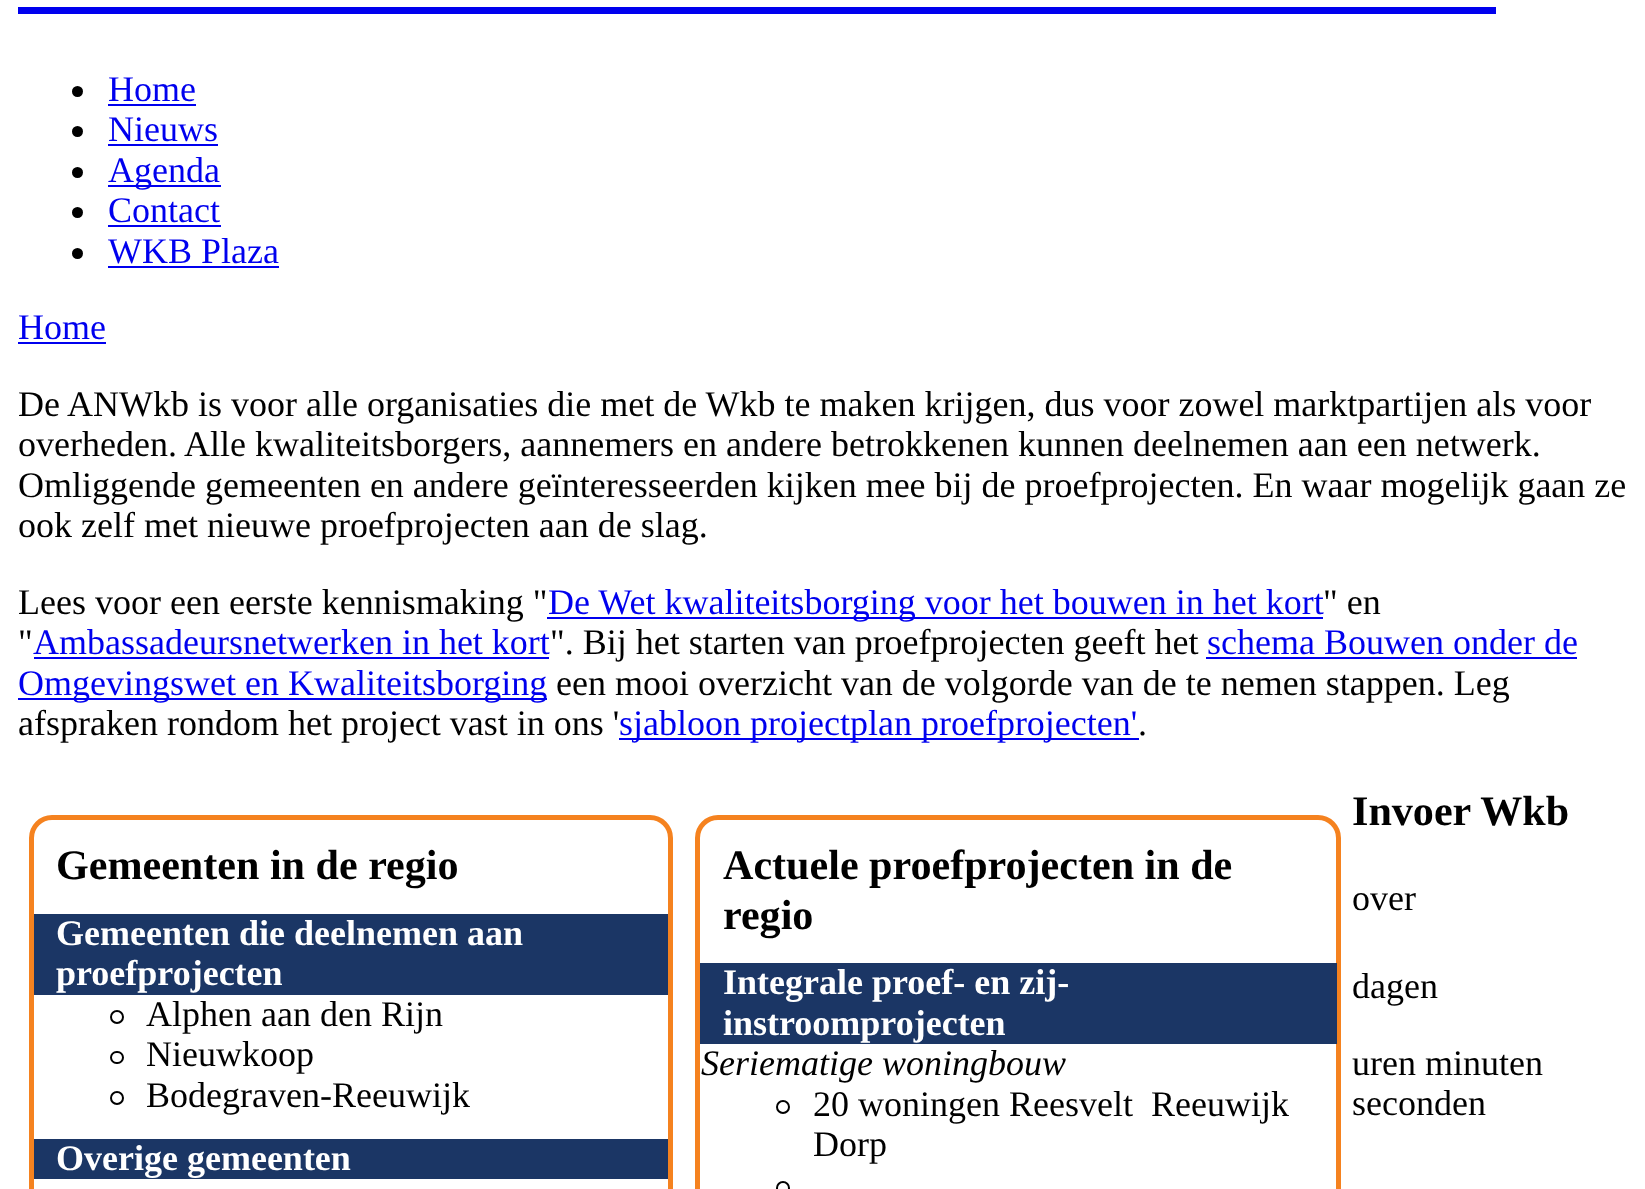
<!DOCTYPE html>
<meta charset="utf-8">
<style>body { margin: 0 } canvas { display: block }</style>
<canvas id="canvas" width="1645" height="1189"></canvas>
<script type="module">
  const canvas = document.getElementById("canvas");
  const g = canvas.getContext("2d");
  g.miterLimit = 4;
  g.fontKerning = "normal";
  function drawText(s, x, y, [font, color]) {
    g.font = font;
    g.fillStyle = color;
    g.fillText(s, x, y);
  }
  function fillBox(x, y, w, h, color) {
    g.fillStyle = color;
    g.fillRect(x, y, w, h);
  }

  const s1 = ["36px Liberation Serif", "#0000EE"];
  const s2 = ["36px Liberation Serif", "#000000"];
  const s3 = ["bold 42.1px Liberation Serif", "#000000"];
  const s4 = ["bold 36px Liberation Serif", "#FFFFFF"];
  const s5 = ["italic 36px Liberation Serif", "#000000"];

  fillBox(0, 0, 1645, 1189, "#FFFFFF");
  fillBox(18, 7, 1478, 7, "#0000EE");
  g.fillStyle = "#000000";
  g.beginPath();
  g.arc(77.5, 91.5, 5.5, 0, Math.PI * 2);
  g.fill();
  drawText("Home", 108, 101, s1);
  fillBox(108, 104, 88, 2, "#0000EE");
  g.fillStyle = "#000000";
  g.beginPath();
  g.arc(77.5, 131.5, 5.5, 0, Math.PI * 2);
  g.fill();
  drawText("Nieuws", 108, 141, s1);
  fillBox(108, 144, 110, 2, "#0000EE");
  g.fillStyle = "#000000";
  g.beginPath();
  g.arc(77.5, 172.5, 5.5, 0, Math.PI * 2);
  g.fill();
  fillBox(108, 185, 113, 2, "#0000EE");
  drawText("Agenda", 108, 182, s1);
  g.fillStyle = "#000000";
  g.beginPath();
  g.arc(77.5, 212.5, 5.5, 0, Math.PI * 2);
  g.fill();
  drawText("Contact", 108, 222, s1);
  fillBox(108, 225, 113, 2, "#0000EE");
  g.fillStyle = "#000000";
  g.beginPath();
  g.arc(77.5, 253.5, 5.5, 0, Math.PI * 2);
  g.fill();
  drawText("WKB Plaza", 108, 263, s1);
  fillBox(108, 266, 171, 2, "#0000EE");
  drawText("Home", 18, 339, s1);
  fillBox(18, 342, 88, 2, "#0000EE");
  drawText("De ANWkb is voor alle organisaties die met de Wkb te maken krijgen, dus voor zowel marktpartijen als voor", 18, 416, s2);
  drawText("overheden. Alle kwaliteitsborgers, aannemers en andere betrokkenen kunnen deelnemen aan een netwerk.", 18, 456, s2);
  drawText("Omliggende gemeenten en andere geïnteresseerden kijken mee bij de proefprojecten. En waar mogelijk gaan ze", 18, 497, s2);
  drawText("ook zelf met nieuwe proefprojecten aan de slag.", 18, 537, s2);
  drawText("Lees voor een eerste kennismaking \"", 18, 614, s2);
  fillBox(547, 617, 776, 2, "#0000EE");
  drawText("De Wet kwaliteitsborging voor het bouwen in het kort", 548, 614, s1);
  drawText("\" en", 1323, 614, s2);
  drawText("\"", 18, 654, s2);
  drawText("Ambassadeursnetwerken in het kort", 33, 654, s1);
  fillBox(34, 657, 515, 2, "#0000EE");
  drawText("\". Bij het starten van proefprojecten geeft het", 550, 654, s2);
  drawText("schema Bouwen onder de", 1207, 654, s1);
  fillBox(1206, 657, 371, 2, "#0000EE");
  fillBox(18, 698, 529, 2, "#0000EE");
  drawText("Omgevingswet en Kwaliteitsborging", 18, 695, s1);
  drawText("een mooi overzicht van de volgorde van de te nemen stappen. Leg", 556, 695, s2);
  drawText("afspraken rondom het project vast in ons '", 18, 735, s2);
  fillBox(619, 738, 520, 2, "#0000EE");
  drawText("sjabloon projectplan proefprojecten'", 619, 735, s1);
  drawText(".", 1138, 735, s2);
  g.beginPath();
  g.roundRect(31.5, 817.5, 639, 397, 20.5);
  g.strokeStyle = "#F5821F";
  g.lineWidth = 5;
  g.stroke();
  drawText("Gemeenten in de regio", 56, 879, s3);
  fillBox(34, 914, 634, 81, "#1B3665");
  drawText("Gemeenten die deelnemen aan", 56, 945, s4);
  drawText("proefprojecten", 56, 985, s4);
  g.beginPath();
  g.arc(117, 1017, 6, 0, Math.PI * 2);
  g.strokeStyle = "#000000";
  g.lineWidth = 2;
  g.stroke();
  drawText("Alphen aan den Rijn", 146, 1026, s2);
  g.beginPath();
  g.roundRect(111, 1052, 12, 11, 5.5);
  g.stroke();
  drawText("Nieuwkoop", 146, 1066, s2);
  g.beginPath();
  g.arc(117, 1098, 6, 0, Math.PI * 2);
  g.stroke();
  drawText("Bodegraven-Reeuwijk", 146, 1107, s2);
  fillBox(34, 1139, 634, 40, "#1B3665");
  drawText("Overige gemeenten", 56, 1170, s4);
  g.beginPath();
  g.roundRect(697.5, 817.5, 641, 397, 20.5);
  g.strokeStyle = "#F5821F";
  g.lineWidth = 5;
  g.stroke();
  drawText("Actuele proefprojecten in de", 723, 879, s3);
  drawText("regio", 723, 929, s3);
  fillBox(700, 963, 637, 81, "#1B3665");
  drawText("Integrale proef- en zij-", 723, 994, s4);
  drawText("instroomprojecten", 723, 1035, s4);
  drawText("Seriematige woningbouw", 701, 1075, s5);
  g.beginPath();
  g.arc(783, 1107, 6, 0, Math.PI * 2);
  g.strokeStyle = "#000000";
  g.lineWidth = 2;
  g.stroke();
  drawText("20 woningen Reesvelt  Reeuwijk", 813, 1116, s2);
  drawText("Dorp", 813, 1156, s2);
  g.beginPath();
  g.arc(783, 1188, 6, 0, Math.PI * 2);
  g.stroke();
  drawText("Invoer Wkb", 1352, 825, s3);
  drawText("over", 1352, 910, s2);
  drawText("dagen", 1352, 998, s2);
  drawText("uren minuten", 1352, 1075, s2);
  drawText("seconden", 1352, 1115, s2);
</script>
